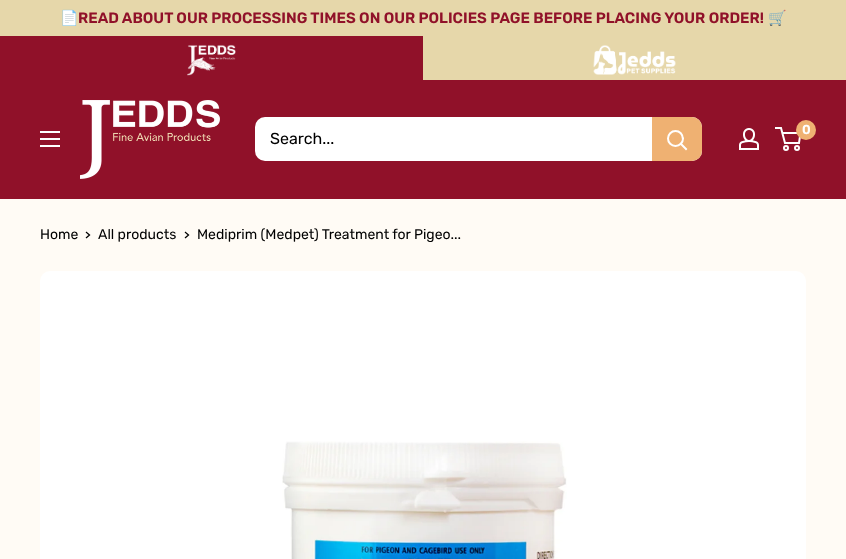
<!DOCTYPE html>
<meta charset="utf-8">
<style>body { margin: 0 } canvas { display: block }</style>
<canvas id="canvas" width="846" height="559"></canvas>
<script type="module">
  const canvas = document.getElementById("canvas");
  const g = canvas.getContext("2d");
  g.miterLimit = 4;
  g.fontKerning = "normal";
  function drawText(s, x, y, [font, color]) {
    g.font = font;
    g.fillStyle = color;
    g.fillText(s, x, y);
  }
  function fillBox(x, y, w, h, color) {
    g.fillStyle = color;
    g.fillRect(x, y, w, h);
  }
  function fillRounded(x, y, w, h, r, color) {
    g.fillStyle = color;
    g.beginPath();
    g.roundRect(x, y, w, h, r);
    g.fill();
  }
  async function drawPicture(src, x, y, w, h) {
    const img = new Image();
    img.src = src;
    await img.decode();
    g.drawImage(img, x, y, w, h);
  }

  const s1 = ["bold 15px Noto Color Emoji", "#901129"];
  const s2 = ["600 15px Rubik", "#901129"];
  const s3 = ["600 13px Rubik", "#FFFFFF"];
  const s4 = ["16px Rubik", "#000000"];
  const s5 = ["14px Rubik", "#000000"];

  fillBox(0, 0, 846, 559, "#FFFBF5");
  fillBox(0, 0, 846, 80, "#E6D7AA");
  drawText("📄", 60, 23, s1);
  drawText("READ ABOUT OUR PROCESSING TIMES ON OUR POLICIES PAGE BEFORE PLACING YOUR ORDER!", 78, 23, s2);
  drawText("🛒", 768, 23, s1);
  fillBox(0, 36, 423, 44, "#901129");
  await drawPicture("pic1.png", 187, 44, 49, 32);
  await drawPicture("pic2.png", 593, 45, 83, 30);
  fillBox(0, 80, 846, 119, "#901129");
  await drawPicture("pic3.png", 80, 100, 140, 79);
  await drawPicture("pic4.png", 739, 128, 20, 22);
  g.beginPath();
  g.arc(786, 148, 2, 0, Math.PI * 2);
  g.strokeStyle = "#FFFFFF";
  g.lineWidth = 2;
  g.stroke();
  g.beginPath();
  g.arc(797, 148, 2, 0, Math.PI * 2);
  g.stroke();
  g.beginPath();
  g.moveTo(782.5, 133);
  g.lineTo(800.5, 133);
  g.lineTo(799, 143);
  g.lineTo(785, 143);
  g.lineTo(781, 128);
  g.lineTo(775, 128);
  g.stroke();
  g.fillStyle = "#EFB172";
  g.beginPath();
  g.arc(806, 130, 10, 0, Math.PI * 2);
  g.fill();
  drawText("0", 802, 134, s3);
  await drawPicture("pic5.png", 40, 131, 20, 16);
  fillRounded(255, 117, 447, 44, 10, "#FFFFFF");
  drawText("Search...", 270, 144, s4);
  g.fillStyle = "#EFB172";
  g.beginPath();
  g.roundRect(652, 117, 50, 44, [0, 10, 10, 0]);
  g.fill();
  g.beginPath();
  g.moveTo(686, 149);
  g.lineTo(681, 144);
  g.lineCap = "square";
  g.stroke();
  g.beginPath();
  g.arc(675.5, 138.5, 7.5, 0, Math.PI * 2);
  g.stroke();
  drawText("Home", 40, 239, s5);
  g.beginPath();
  g.moveTo(86.5, 232.5);
  g.lineTo(89.5, 235);
  g.lineTo(86.5, 237.5);
  g.strokeStyle = "#000000";
  g.lineWidth = 1.3;
  g.stroke();
  drawText("All products", 98, 239, s5);
  g.beginPath();
  g.moveTo(185.5, 232.5);
  g.lineTo(188.5, 235);
  g.lineTo(185.5, 237.5);
  g.stroke();
  drawText("Mediprim (Medpet) Treatment for Pigeo...", 197, 239, s5);
  fillRounded(40, 271, 766, 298, 10, "#FFFFFF");
  await drawPicture("pic6.png", 282, 441, 285, 118);
</script>
